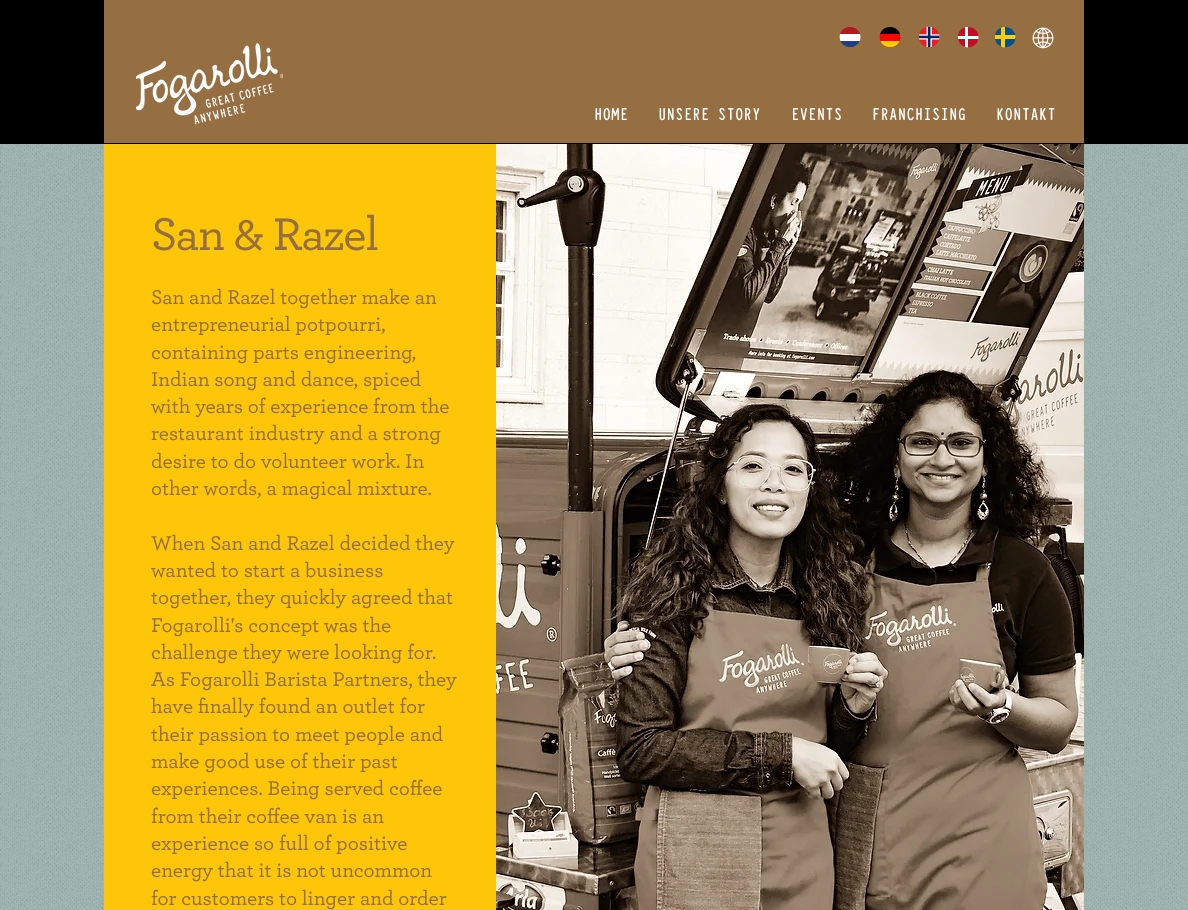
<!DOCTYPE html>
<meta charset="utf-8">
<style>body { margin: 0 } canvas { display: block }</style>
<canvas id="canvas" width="1188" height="910"></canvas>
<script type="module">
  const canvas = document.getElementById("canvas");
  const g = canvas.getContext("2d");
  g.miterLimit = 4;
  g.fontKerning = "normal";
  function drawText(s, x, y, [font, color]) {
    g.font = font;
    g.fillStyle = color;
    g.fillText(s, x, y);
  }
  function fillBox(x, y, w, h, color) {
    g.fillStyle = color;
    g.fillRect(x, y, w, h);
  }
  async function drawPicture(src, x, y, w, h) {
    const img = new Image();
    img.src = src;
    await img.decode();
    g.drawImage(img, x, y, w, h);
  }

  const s1 = ["bold 19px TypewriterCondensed", "#FFFFFF"];
  const s2 = ["500 48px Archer", "#956E41"];
  const s3 = ["500 21px Archer", "#956E41"];

  fillBox(0, 0, 1188, 910, "#A1B6B3");
  fillBox(0, 0, 1188, 144, "#000000");
  fillBox(104, 0, 980, 143, "#956E41");
  g.fillStyle = "#1A408A";
  g.beginPath();
  g.moveTo(859.5, 41);
  g.bezierCurveTo(856, 49, 844, 49, 840.5, 41);
  g.closePath();
  g.fill();
  g.fillStyle = "#FFFFFF";
  g.beginPath();
  g.moveTo(860.5, 37);
  g.lineTo(860, 34);
  g.lineTo(840, 34);
  g.bezierCurveTo(839.5, 36.5, 839.5, 39, 840.5, 41);
  g.lineTo(859.5, 41);
  g.bezierCurveTo(860, 40, 860.5, 38.5, 860.5, 37);
  g.closePath();
  g.fill();
  g.fillStyle = "#AE1A22";
  g.beginPath();
  g.moveTo(860, 34);
  g.lineTo(840, 34);
  g.bezierCurveTo(843, 24.5, 857, 24.5, 860, 34);
  g.closePath();
  g.fill();
  g.fillStyle = "#FFCC00";
  g.beginPath();
  g.moveTo(899.5, 41);
  g.bezierCurveTo(896, 49, 884, 49, 880.5, 41);
  g.closePath();
  g.fill();
  g.fillStyle = "#FF0000";
  g.beginPath();
  g.moveTo(900.5, 37);
  g.lineTo(900, 34);
  g.lineTo(880, 34);
  g.bezierCurveTo(879.5, 36.5, 879.5, 39, 880.5, 41);
  g.lineTo(899.5, 41);
  g.bezierCurveTo(900, 40, 900.5, 38.5, 900.5, 37);
  g.closePath();
  g.fill();
  g.fillStyle = "#000000";
  g.beginPath();
  g.moveTo(900, 34);
  g.lineTo(880, 34);
  g.bezierCurveTo(883, 24.5, 897, 24.5, 900, 34);
  g.closePath();
  g.fill();
  await drawPicture("pic1.png", 918, 26, 22, 22);
  g.fillStyle = "#C40C26";
  g.beginPath();
  g.moveTo(978.5, 37);
  g.bezierCurveTo(978.5, 23.5, 957.5, 23.5, 958, 37);
  g.bezierCurveTo(958, 50.5, 978.5, 50.5, 978.5, 37);
  g.closePath();
  g.fill();
  g.fillStyle = "#FFFFFF";
  g.beginPath();
  g.moveTo(978.5, 37);
  g.lineTo(978.5, 36);
  g.lineTo(958, 36);
  g.lineTo(958, 39);
  g.lineTo(978.5, 39);
  g.closePath();
  g.fill();
  g.beginPath();
  g.moveTo(965.5, 27);
  g.lineTo(968, 27);
  g.lineTo(968, 47.5);
  g.lineTo(965, 47);
  g.lineTo(965, 27);
  g.closePath();
  g.fill();
  g.fillStyle = "#005294";
  g.beginPath();
  g.moveTo(1015.5, 37);
  g.bezierCurveTo(1015.5, 23.5, 994.5, 23.5, 995, 37);
  g.bezierCurveTo(995, 50.5, 1015.5, 50.5, 1015.5, 37);
  g.closePath();
  g.fill();
  g.fillStyle = "#FECC00";
  g.beginPath();
  g.moveTo(1015.5, 37);
  g.lineTo(1015.5, 35);
  g.lineTo(995, 35);
  g.lineTo(995, 39);
  g.lineTo(1015, 39);
  g.closePath();
  g.fill();
  g.beginPath();
  g.moveTo(1001, 27.5);
  g.bezierCurveTo(1002.5, 27, 1003.5, 27, 1005, 27);
  g.lineTo(1005, 47.5);
  g.bezierCurveTo(1003.5, 47.5, 1002, 47, 1001, 46.5);
  g.closePath();
  g.fill();
  await drawPicture("pic2.png", 1032, 27, 22, 22);
  await drawPicture("pic3.png", 136, 43, 147, 82);
  drawText("HOME", 594, 120, s1);
  drawText("UNSERE STORY", 658, 120, s1);
  drawText("EVENTS", 791, 120, s1);
  drawText("FRANCHISING", 872, 120, s1);
  drawText("KONTAKT", 996, 120, s1);
  await drawPicture("pic5.png", 0, 144, 1188, 766);
  fillBox(104, 144, 392, 766, "#FDC609");
  g.letterSpacing = "-1px";
  drawText("San & Razel", 151, 250, s2);
  g.letterSpacing = "0px";
  drawText("San and Razel together make an", 151, 304, s3);
  drawText("entrepreneurial potpourri,", 151, 331, s3);
  drawText("containing parts engineering,", 151, 359, s3);
  drawText("Indian song and dance, spiced", 151, 386, s3);
  drawText("with years of experience from the", 151, 413, s3);
  drawText("restaurant industry and a strong", 151, 440, s3);
  drawText("desire to do volunteer work. In", 151, 468, s3);
  drawText("other words, a magical mixture.", 151, 495, s3);
  drawText("When San and Razel decided they", 151, 550, s3);
  drawText("wanted to start a business", 151, 577, s3);
  drawText("together, they quickly agreed that", 151, 604, s3);
  drawText("Fogarolli's concept was the", 151, 632, s3);
  drawText("challenge they were looking for.", 151, 659, s3);
  drawText("As Fogarolli Barista Partners, they", 151, 686, s3);
  drawText("have finally found an outlet for", 151, 713, s3);
  drawText("their passion to meet people and", 151, 741, s3);
  drawText("make good use of their past", 151, 768, s3);
  drawText("experiences. Being served coffee", 151, 795, s3);
  drawText("from their coffee van is an", 151, 823, s3);
  drawText("experience so full of positive", 151, 850, s3);
  drawText("energy that it is not uncommon", 151, 877, s3);
  drawText("for customers to linger and order", 151, 905, s3);
  await drawPicture("pic4.png", 496, 144, 588, 766);
</script>
